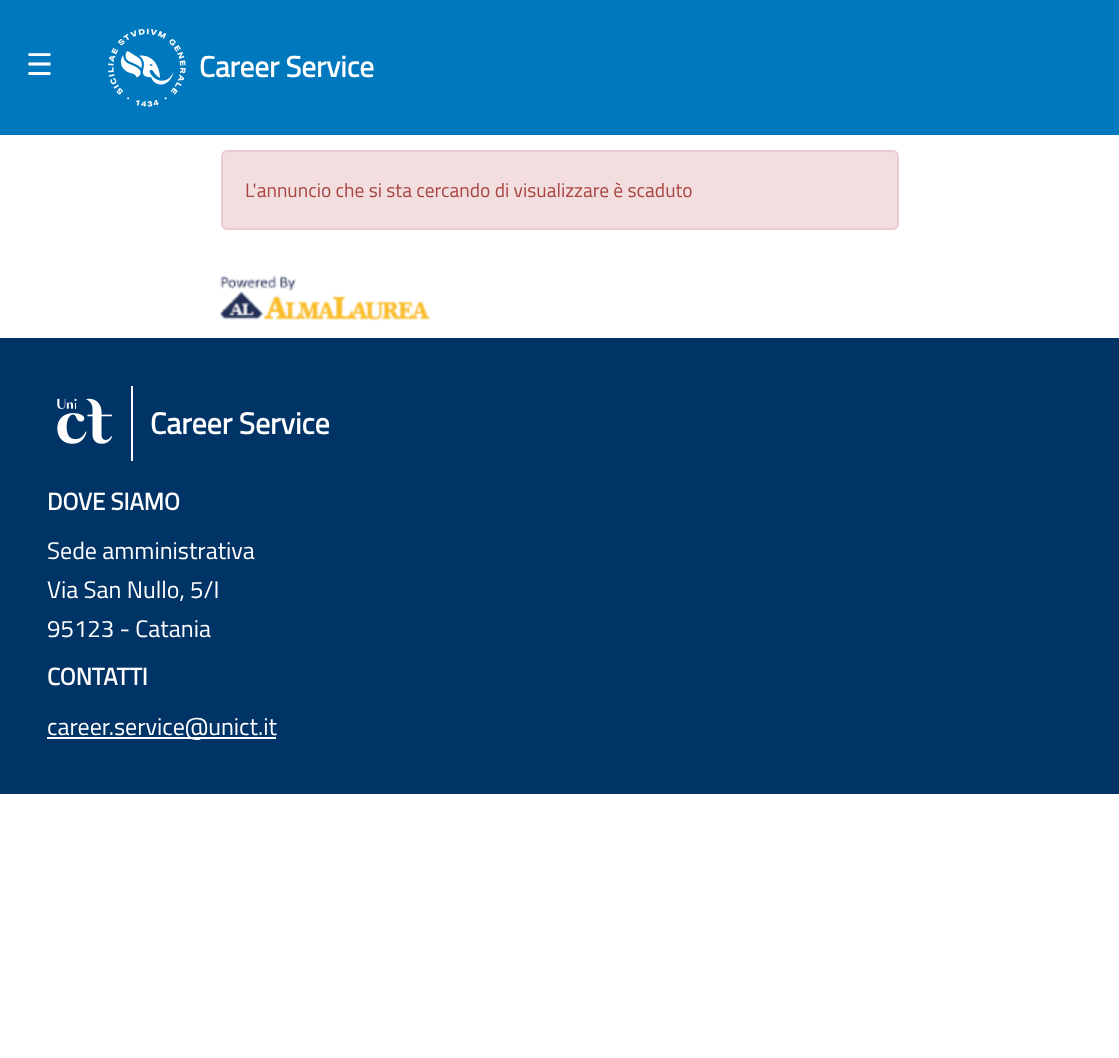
<!DOCTYPE html>
<meta charset="utf-8">
<style>body { margin: 0 } canvas { display: block }</style>
<canvas id="canvas" width="1119" height="1058"></canvas>
<script type="module">
  const canvas = document.getElementById("canvas");
  const g = canvas.getContext("2d");
  g.miterLimit = 4;
  g.fontKerning = "normal";
  function drawText(s, x, y, [font, color]) {
    g.font = font;
    g.fillStyle = color;
    g.fillText(s, x, y);
  }
  function fillBox(x, y, w, h, color) {
    g.fillStyle = color;
    g.fillRect(x, y, w, h);
  }
  async function drawPicture(src, x, y, w, h) {
    const img = new Image();
    img.src = src;
    await img.decode();
    g.drawImage(img, x, y, w, h);
  }

  const s1 = ["30px DejaVu Sans", "#FFFFFF"];
  const s2 = ["bold 29.25px Titillium Web", "#FFFFFF"];
  const s3 = ["19.5px Titillium Web", "#A94442"];
  const s4 = ["bold 30px Titillium Web", "#FFFFFF"];
  const s5 = ["bold 24px Titillium Web", "#FFFFFF"];
  const s6 = ["24px Titillium Web", "#FFFFFF"];

  fillBox(0, 0, 1119, 1058, "#FFFFFF");
  fillBox(0, 0, 1119, 135, "#0078BD");
  drawText("☰", 26, 75, s1);
  await drawPicture("pic1.png", 108, 28, 78, 79);
  drawText("Career Service", 199, 77, s2);
  g.fillStyle = "#F2DEDE";
  g.beginPath();
  g.roundRect(222, 151, 676, 78, 5);
  g.fill();
  g.strokeStyle = "#EBCCD1";
  g.lineWidth = 2;
  g.stroke();
  drawText("L'annuncio che si sta cercando di visualizzare è scaduto", 245, 197, s3);
  await drawPicture("pic2.png", 220, 275, 211, 47);
  fillBox(0, 338, 1119, 456, "#003366");
  await drawPicture("pic3.png", 57, 398, 56, 46);
  fillBox(131, 386, 2, 75, "#FFFFFF");
  drawText("Career Service", 150, 434, s4);
  drawText("DOVE SIAMO", 47, 510, s5);
  drawText("Sede amministrativa", 47, 559, s6);
  drawText("Via San Nullo, 5/I", 47, 598, s6);
  drawText("95123 - Catania", 47, 637, s6);
  drawText("CONTATTI", 47, 685, s5);
  fillBox(47, 737, 229, 2, "#FFFFFF");
  drawText("career.service@unict.it", 47, 735, s6);
</script>
